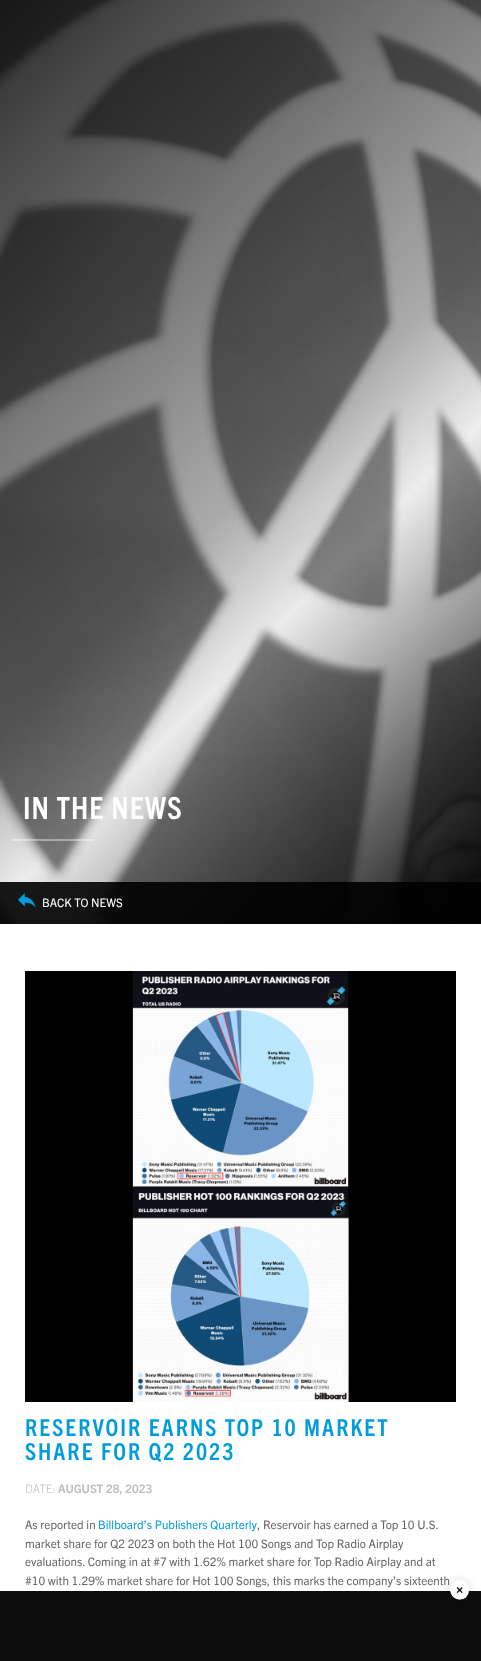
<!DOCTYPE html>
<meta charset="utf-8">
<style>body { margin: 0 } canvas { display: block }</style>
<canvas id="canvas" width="481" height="1661"></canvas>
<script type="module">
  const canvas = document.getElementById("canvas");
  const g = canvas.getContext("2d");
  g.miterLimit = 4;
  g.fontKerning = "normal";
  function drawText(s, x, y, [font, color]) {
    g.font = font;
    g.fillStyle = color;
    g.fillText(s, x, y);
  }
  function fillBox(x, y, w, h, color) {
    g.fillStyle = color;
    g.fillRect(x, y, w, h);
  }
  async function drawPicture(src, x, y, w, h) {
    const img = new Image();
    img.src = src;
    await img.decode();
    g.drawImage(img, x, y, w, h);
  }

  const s1 = ["bold 30.5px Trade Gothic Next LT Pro", "#FFFFFF"];
  const s2 = ["11.7px Trade Gothic Next LT Pro", "#FFFFFF"];
  const s3 = ["bold 23.4px Trade Gothic Next LT Pro", "#009CDC"];
  const s4 = ["300 11.7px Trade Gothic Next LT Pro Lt", "#BEBEBE"];
  const s5 = ["bold 11.7px 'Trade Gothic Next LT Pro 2'", "#BEBEBE"];
  const s6 = ["11.7px Trade Gothic Next LT Pro", "#656565"];
  const s7 = ["11.7px Trade Gothic Next LT Pro", "#009CDC"];

  fillBox(0, 0, 481, 1661, "#FFFFFF");
  fillBox(0, 1591, 481, 70, "#0D0D0D");
  await drawPicture("pic1.png", 0, 0, 481, 924);
  g.letterSpacing = "1px";
  drawText("IN THE NEWS", 23, 819, s1);
  fillBox(12, 839, 82, 2, "rgba(255, 255, 255, 0.4)");
  fillBox(0, 882, 481, 42, "rgba(0, 0, 0, 0.9)");
  await drawPicture("pic2.png", 18, 893, 18, 15);
  g.letterSpacing = "0px";
  drawText("BACK TO NEWS", 42, 907, s2);
  await drawPicture("pic3.png", 25, 971, 431, 431);
  g.letterSpacing = "2px";
  drawText("RESERVOIR EARNS TOP 10 MARKET", 25, 1436, s3);
  drawText("SHARE FOR Q2 2023", 25, 1460, s3);
  g.letterSpacing = "0px";
  drawText("DATE:", 25, 1493, s4);
  drawText("AUGUST 28, 2023", 58, 1493, s5);
  drawText("As reported in", 25, 1529, s6);
  drawText("Billboard’s Publishers Quarterly", 98, 1529, s7);
  drawText(", Reservoir has earned a Top 10 U.S.", 257, 1529, s6);
  drawText("market share for Q2 2023 on both the Hot 100 Songs and Top Radio Airplay", 25, 1548, s6);
  drawText("evaluations. Coming in at #7 with 1.62% market share for Top Radio Airplay and at", 25, 1566, s6);
  drawText("#10 with 1.29% market share for Hot 100 Songs, this marks the company’s sixteenth", 25, 1585, s6);
  g.save();
  g.beginPath();
  g.moveTo(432, 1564);
  g.lineTo(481, 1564);
  g.lineTo(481, 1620);
  g.lineTo(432, 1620);
  g.closePath();
  g.moveTo(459.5, 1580);
  g.bezierCurveTo(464.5, 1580, 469, 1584.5, 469, 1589.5);
  g.lineTo(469, 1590.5);
  g.bezierCurveTo(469, 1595.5, 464.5, 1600, 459.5, 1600);
  g.bezierCurveTo(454.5, 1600, 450, 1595.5, 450, 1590.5);
  g.lineTo(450, 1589.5);
  g.bezierCurveTo(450, 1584.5, 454.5, 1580, 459.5, 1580);
  g.closePath();
  g.clip("evenodd");
  g.fillStyle = "rgba(0, 0, 0, 0.2)";
  g.filter = "blur(5.5px)";
  g.beginPath();
  g.roundRect(450, 1582, 19, 20, 9.5);
  g.fill();
  g.filter = "none";
  g.restore();
  await drawPicture("pic4.png", 450, 1586, 19, 14);
</script>
